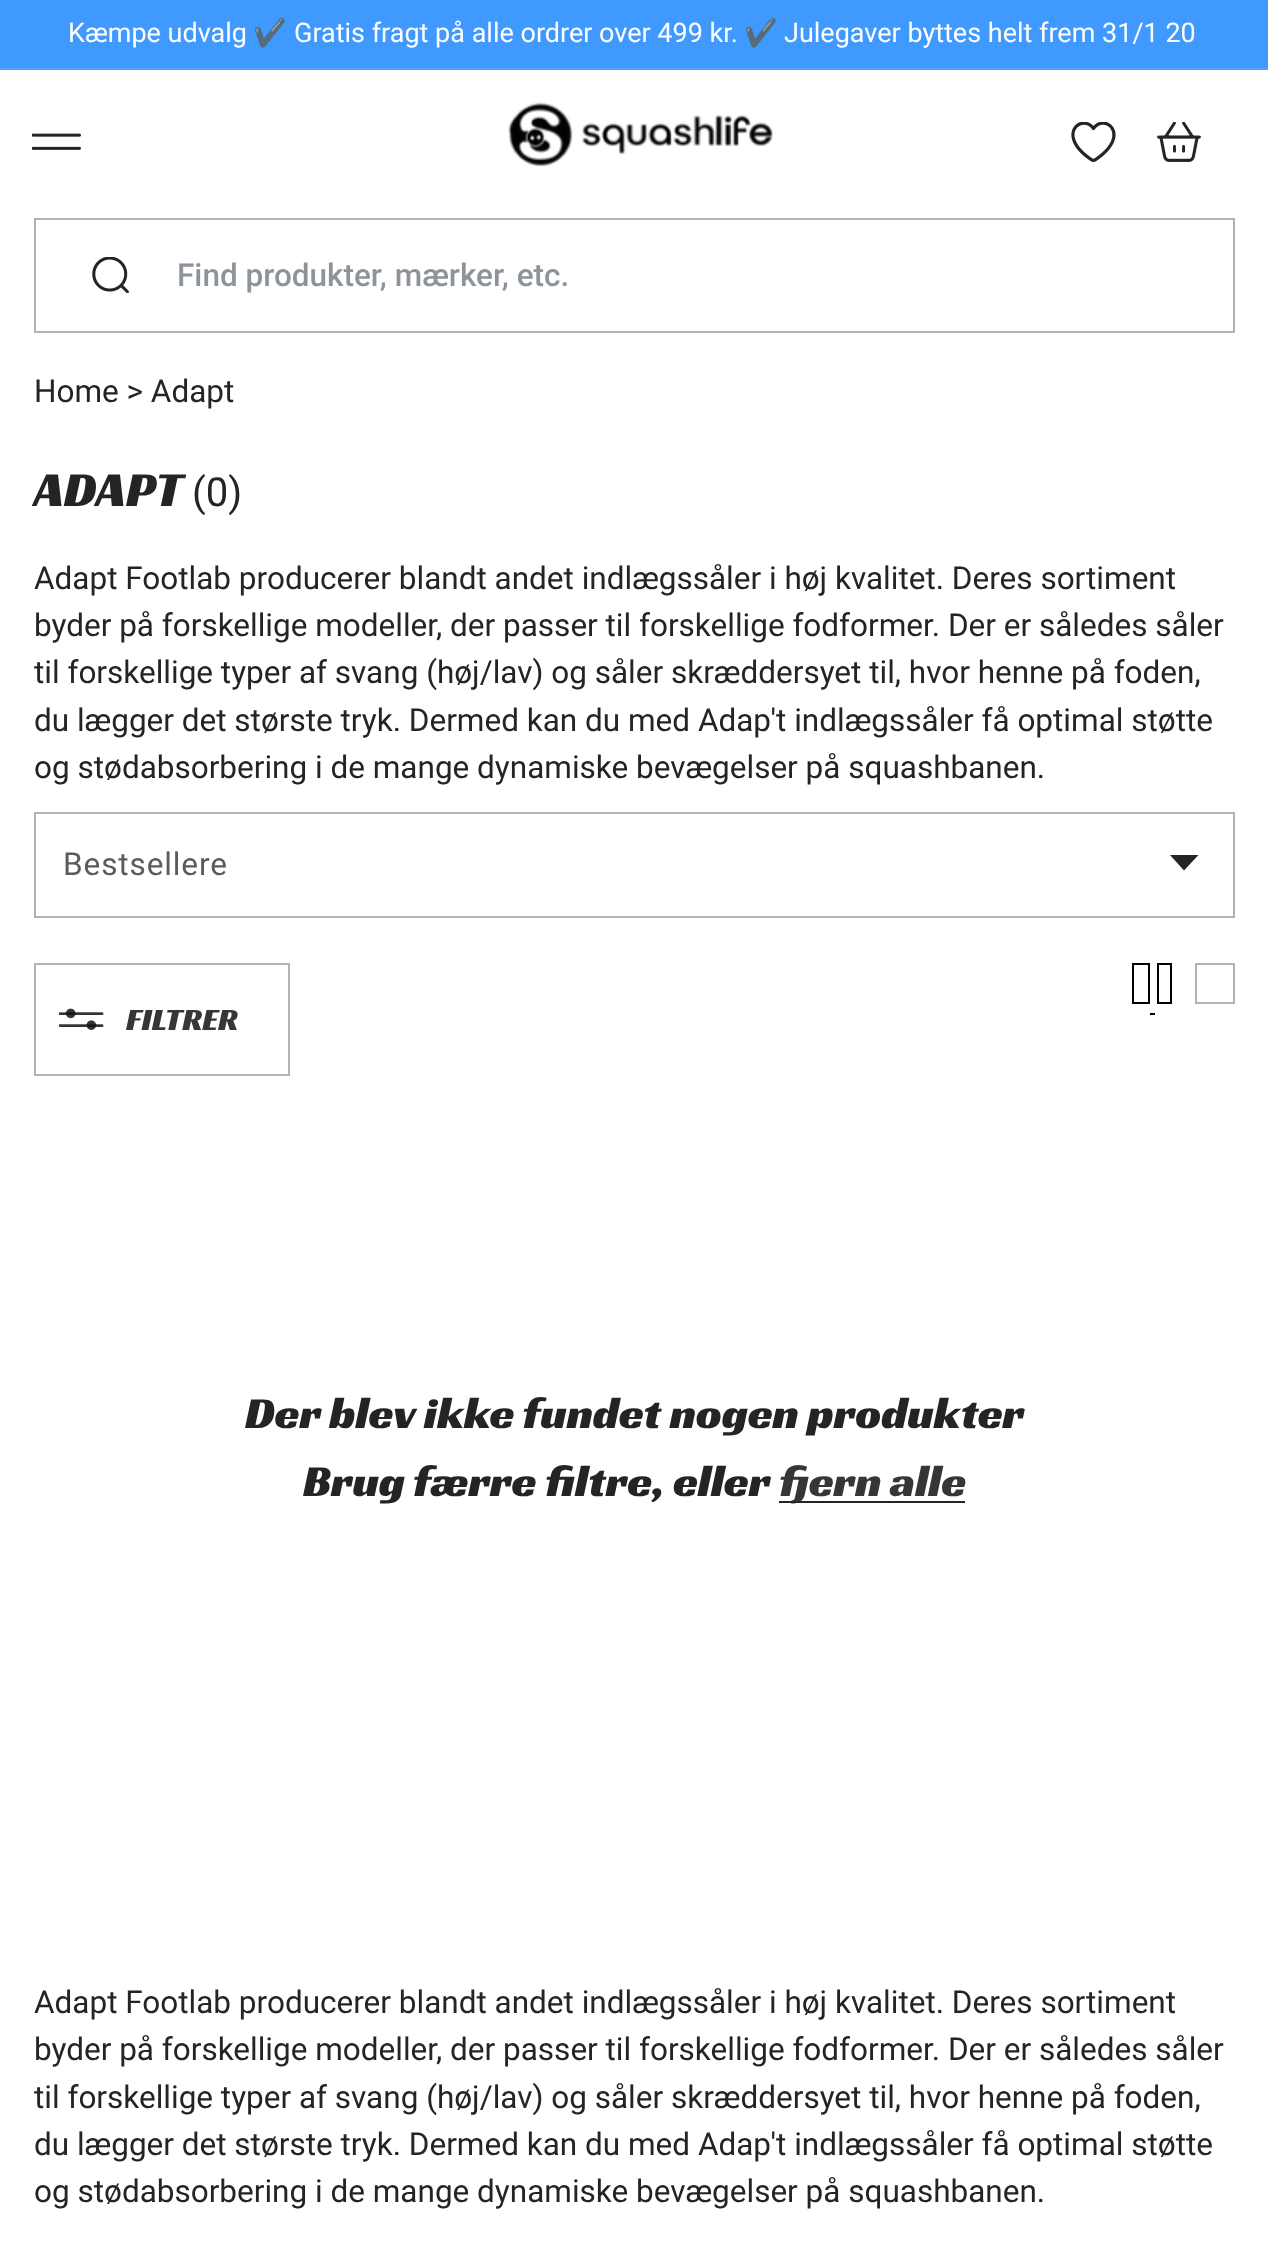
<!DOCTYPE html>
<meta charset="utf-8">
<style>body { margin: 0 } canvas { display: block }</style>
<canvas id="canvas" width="1268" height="2253"></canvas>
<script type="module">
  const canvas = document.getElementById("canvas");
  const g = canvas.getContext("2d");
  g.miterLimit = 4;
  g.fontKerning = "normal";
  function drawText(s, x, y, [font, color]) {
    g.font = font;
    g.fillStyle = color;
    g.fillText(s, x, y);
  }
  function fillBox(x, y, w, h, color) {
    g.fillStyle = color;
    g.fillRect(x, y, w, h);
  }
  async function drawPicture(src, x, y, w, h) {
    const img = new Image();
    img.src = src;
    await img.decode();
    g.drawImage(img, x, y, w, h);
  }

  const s1 = ["27px Roboto", "#FFFFFF"];
  const s2 = ["27px Noto Color Emoji", "#FFFFFF"];
  const s3 = ["500 31.5px Roboto", "#8C939B"];
  const s4 = ["31.5px Roboto", "#242424"];
  const s5 = ["49.5px Racing Sans One", "#242424"];
  const s6 = ["40px Roboto", "#242424"];
  const s7 = ["31.5px Roboto", "#5B5B5B"];
  const s8 = ["31.5px Racing Sans One", "#363636"];
  const s9 = ["45px Racing Sans One", "#242424"];
  const s10 = ["45px Racing Sans One", "#363636"];

  fillBox(0, 0, 1268, 2253, "#FFFFFF");
  fillBox(0, 0, 1268, 68, "#4099FF");
  fillBox(0, 68, 1268, 2, "#4FA1FF");
  drawText("Kæmpe udvalg", 68, 42, s1);
  drawText("✔️", 253, 42, s2);
  drawText("Gratis fragt på alle ordrer over 499 kr.", 294, 42, s1);
  drawText("✔️", 744, 42, s2);
  drawText("Julegaver byttes helt frem 31/1 20", 784, 42, s1);
  await drawPicture("pic1.png", 32, 133, 49, 17);
  await drawPicture("pic2.png", 508, 102, 265, 64);
  await drawPicture("pic3.png", 1071, 122, 45, 40);
  await drawPicture("pic4.png", 1157, 122, 44, 40);
  g.strokeStyle = "#ADB3BB";
  g.lineWidth = 2;
  g.strokeRect(35, 219, 1199, 113);
  await drawPicture("pic5.png", 92, 257, 37, 36);
  drawText("Find produkter, mærker, etc.", 177, 286, s3);
  drawText("Home > Adapt", 34, 402, s4);
  drawText("ADAPT", 34, 506, s5);
  drawText("(0)", 192, 506, s6);
  drawText("Adapt Footlab producerer blandt andet indlægssåler i høj kvalitet. Deres sortiment", 34, 589, s4);
  drawText("byder på forskellige modeller, der passer til forskellige fodformer. Der er således såler", 34, 636, s4);
  drawText("til forskellige typer af svang (høj/lav) og såler skræddersyet til, hvor henne på foden,", 34, 683, s4);
  drawText("du lægger det største tryk. Dermed kan du med Adap't indlægssåler få optimal støtte", 34, 731, s4);
  drawText("og stødabsorbering i de mange dynamiske bevægelser på squashbanen.", 34, 778, s4);
  g.strokeRect(35, 813, 1199, 104);
  g.letterSpacing = "0.9px";
  drawText("Bestsellere", 63, 875, s7);
  g.fillStyle = "#242424";
  g.beginPath();
  g.moveTo(1184, 870.5);
  g.lineTo(1170, 855);
  g.lineTo(1198.5, 855);
  g.closePath();
  g.fill();
  g.strokeStyle = "#000000";
  g.strokeRect(1133, 964, 16, 39);
  g.strokeRect(1158, 964, 13, 39);
  fillBox(1150, 1013, 5, 2, "#000000");
  g.strokeStyle = "#ADB3BB";
  g.strokeRect(1196, 964, 38, 39);
  g.strokeRect(35, 964, 254, 111);
  await drawPicture("pic6.png", 59, 1008, 45, 22);
  g.letterSpacing = "0px";
  drawText("FILTRER", 126, 1030, s8);
  drawText("Der blev ikke fundet nogen produkter", 245, 1428, s9);
  drawText("Brug færre filtre, eller", 303, 1496, s9);
  drawText("fjern alle", 779, 1496, s10);
  fillBox(779, 1501, 186, 2, "#242424");
  drawText("Adapt Footlab producerer blandt andet indlægssåler i høj kvalitet. Deres sortiment", 34, 2013, s4);
  drawText("byder på forskellige modeller, der passer til forskellige fodformer. Der er således såler", 34, 2060, s4);
  drawText("til forskellige typer af svang (høj/lav) og såler skræddersyet til, hvor henne på foden,", 34, 2108, s4);
  drawText("du lægger det største tryk. Dermed kan du med Adap't indlægssåler få optimal støtte", 34, 2155, s4);
  drawText("og stødabsorbering i de mange dynamiske bevægelser på squashbanen.", 34, 2202, s4);
</script>
